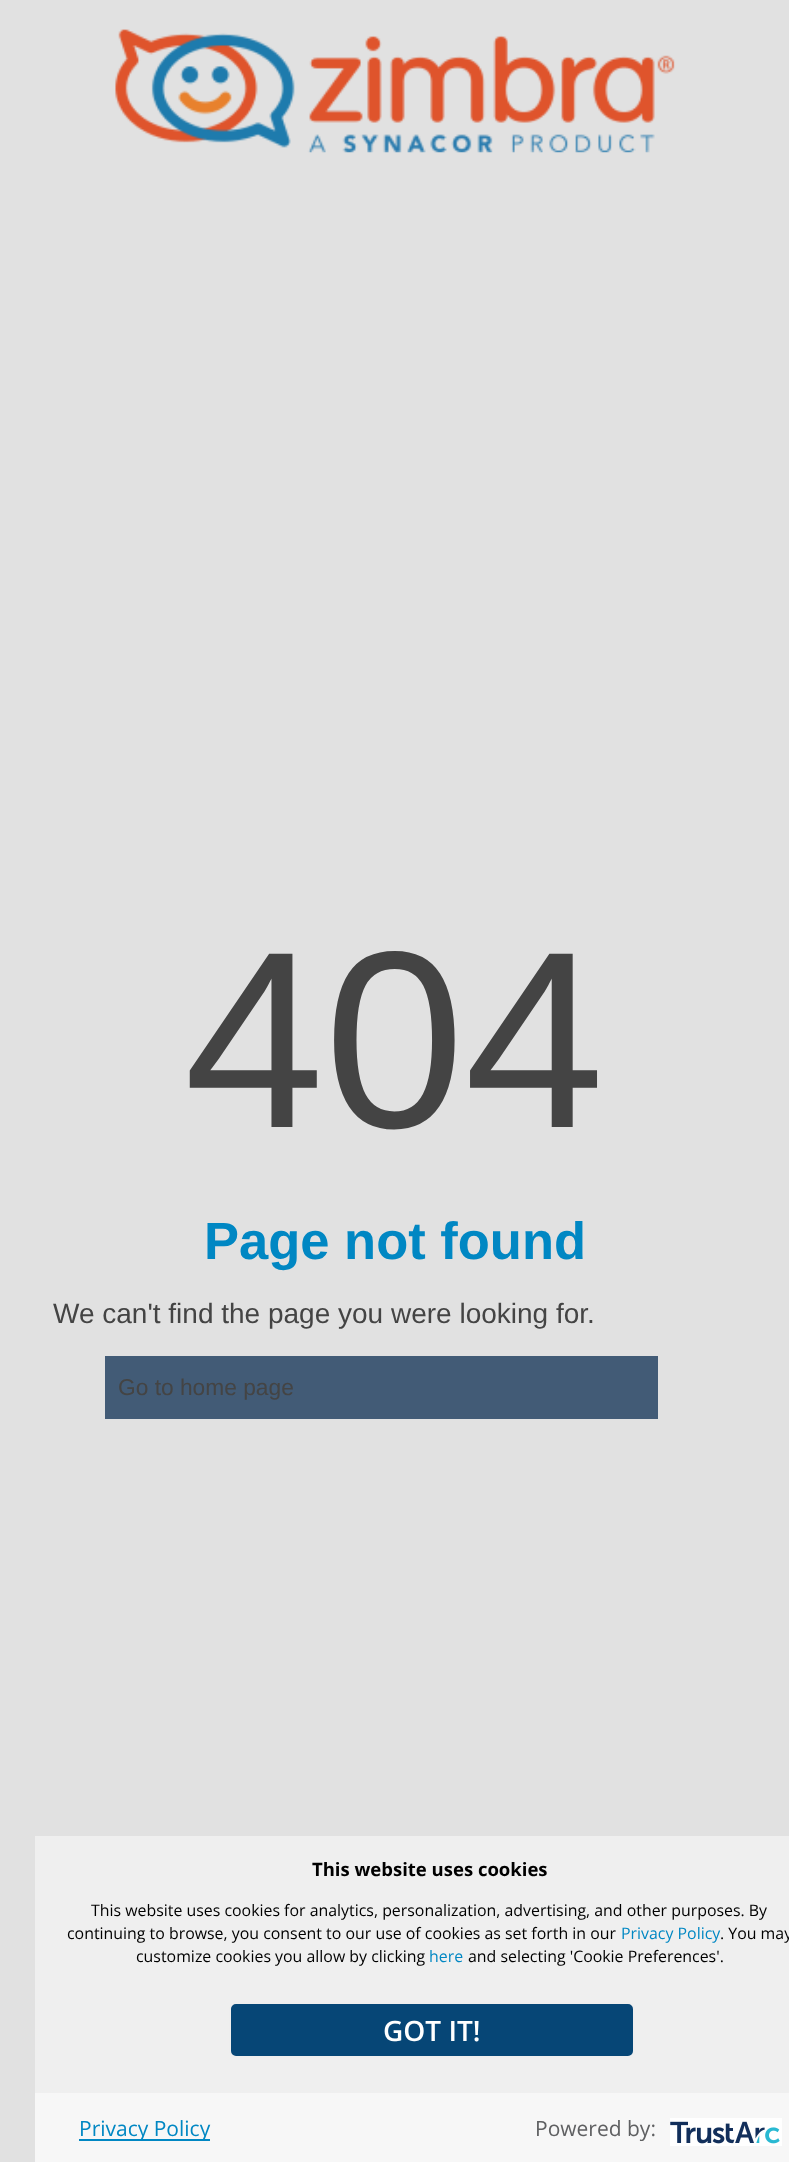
<!DOCTYPE html>
<meta charset="utf-8">
<style>body { margin: 0 } canvas { display: block }</style>
<canvas id="canvas" width="789" height="2162"></canvas>
<script type="module">
  const canvas = document.getElementById("canvas");
  const g = canvas.getContext("2d");
  g.miterLimit = 4;
  g.fontKerning = "normal";
  function drawText(s, x, y, [font, color]) {
    g.font = font;
    g.fillStyle = color;
    g.fillText(s, x, y);
  }
  function fillBox(x, y, w, h, color) {
    g.fillStyle = color;
    g.fillRect(x, y, w, h);
  }
  async function drawPicture(src, x, y, w, h) {
    const img = new Image();
    img.src = src;
    await img.decode();
    g.drawImage(img, x, y, w, h);
  }

  const s1 = ["252px Liberation Sans", "#444444"];
  const s2 = ["bold 52.5px Liberation Sans", "#0087C3"];
  const s3 = ["28px Liberation Sans", "#444444"];
  const s4 = ["22.75px Liberation Sans", "#444444"];
  const s5 = ["bold 18.5px Open Sans", "#000000"];
  const s6 = ["15.9px Open Sans", "#000000"];
  const s7 = ["15.9px Open Sans", "#0087C3"];
  const s8 = ["600 28px Open Sans", "#FFFFFF"];
  const s9 = ["21px Open Sans", "#0087C3"];
  const s10 = ["21px Open Sans", "#5F6062"];

  fillBox(0, 0, 789, 2162, "#E1E1E1");
  await drawPicture("pic1.png", 115, 29, 560, 124);
  drawText("404", 184, 1127, s1);
  drawText("Page not found", 204, 1259, s2);
  drawText("We can't find the page you were looking for.", 53, 1323, s3);
  fillBox(105, 1356, 553, 63, "#425B76");
  drawText("Go to home page", 118, 1395, s4);
  fillBox(35, 1836, 754, 257, "#EFEFEF");
  drawText("This website uses cookies", 312, 1876, s5);
  drawText("This website uses cookies for analytics, personalization, advertising, and other purposes. By", 91, 1916, s6);
  drawText("continuing to browse, you consent to our use of cookies as set forth in our", 67, 1939, s6);
  drawText("Privacy Policy", 621, 1939, s7);
  drawText(". You may", 720, 1939, s6);
  drawText("customize cookies you allow by clicking", 136, 1962, s6);
  drawText("here", 429, 1962, s7);
  drawText("and selecting 'Cookie Preferences'.", 468, 1962, s6);
  g.fillStyle = "#064676";
  g.beginPath();
  g.roundRect(230, 2003, 404, 54, 6);
  g.fill();
  g.strokeStyle = "#EEEEEE";
  g.lineWidth = 2;
  g.stroke();
  drawText("GOT IT!", 383, 2041, s8);
  fillBox(35, 2093, 754, 69, "#F7F7F7");
  fillBox(79, 2139, 131, 2, "#0087C3");
  drawText("Privacy Policy", 79, 2136, s9);
  drawText("Powered by:", 535, 2136, s10);
  await drawPicture("pic2.png", 670, 2118, 112, 28);
</script>
